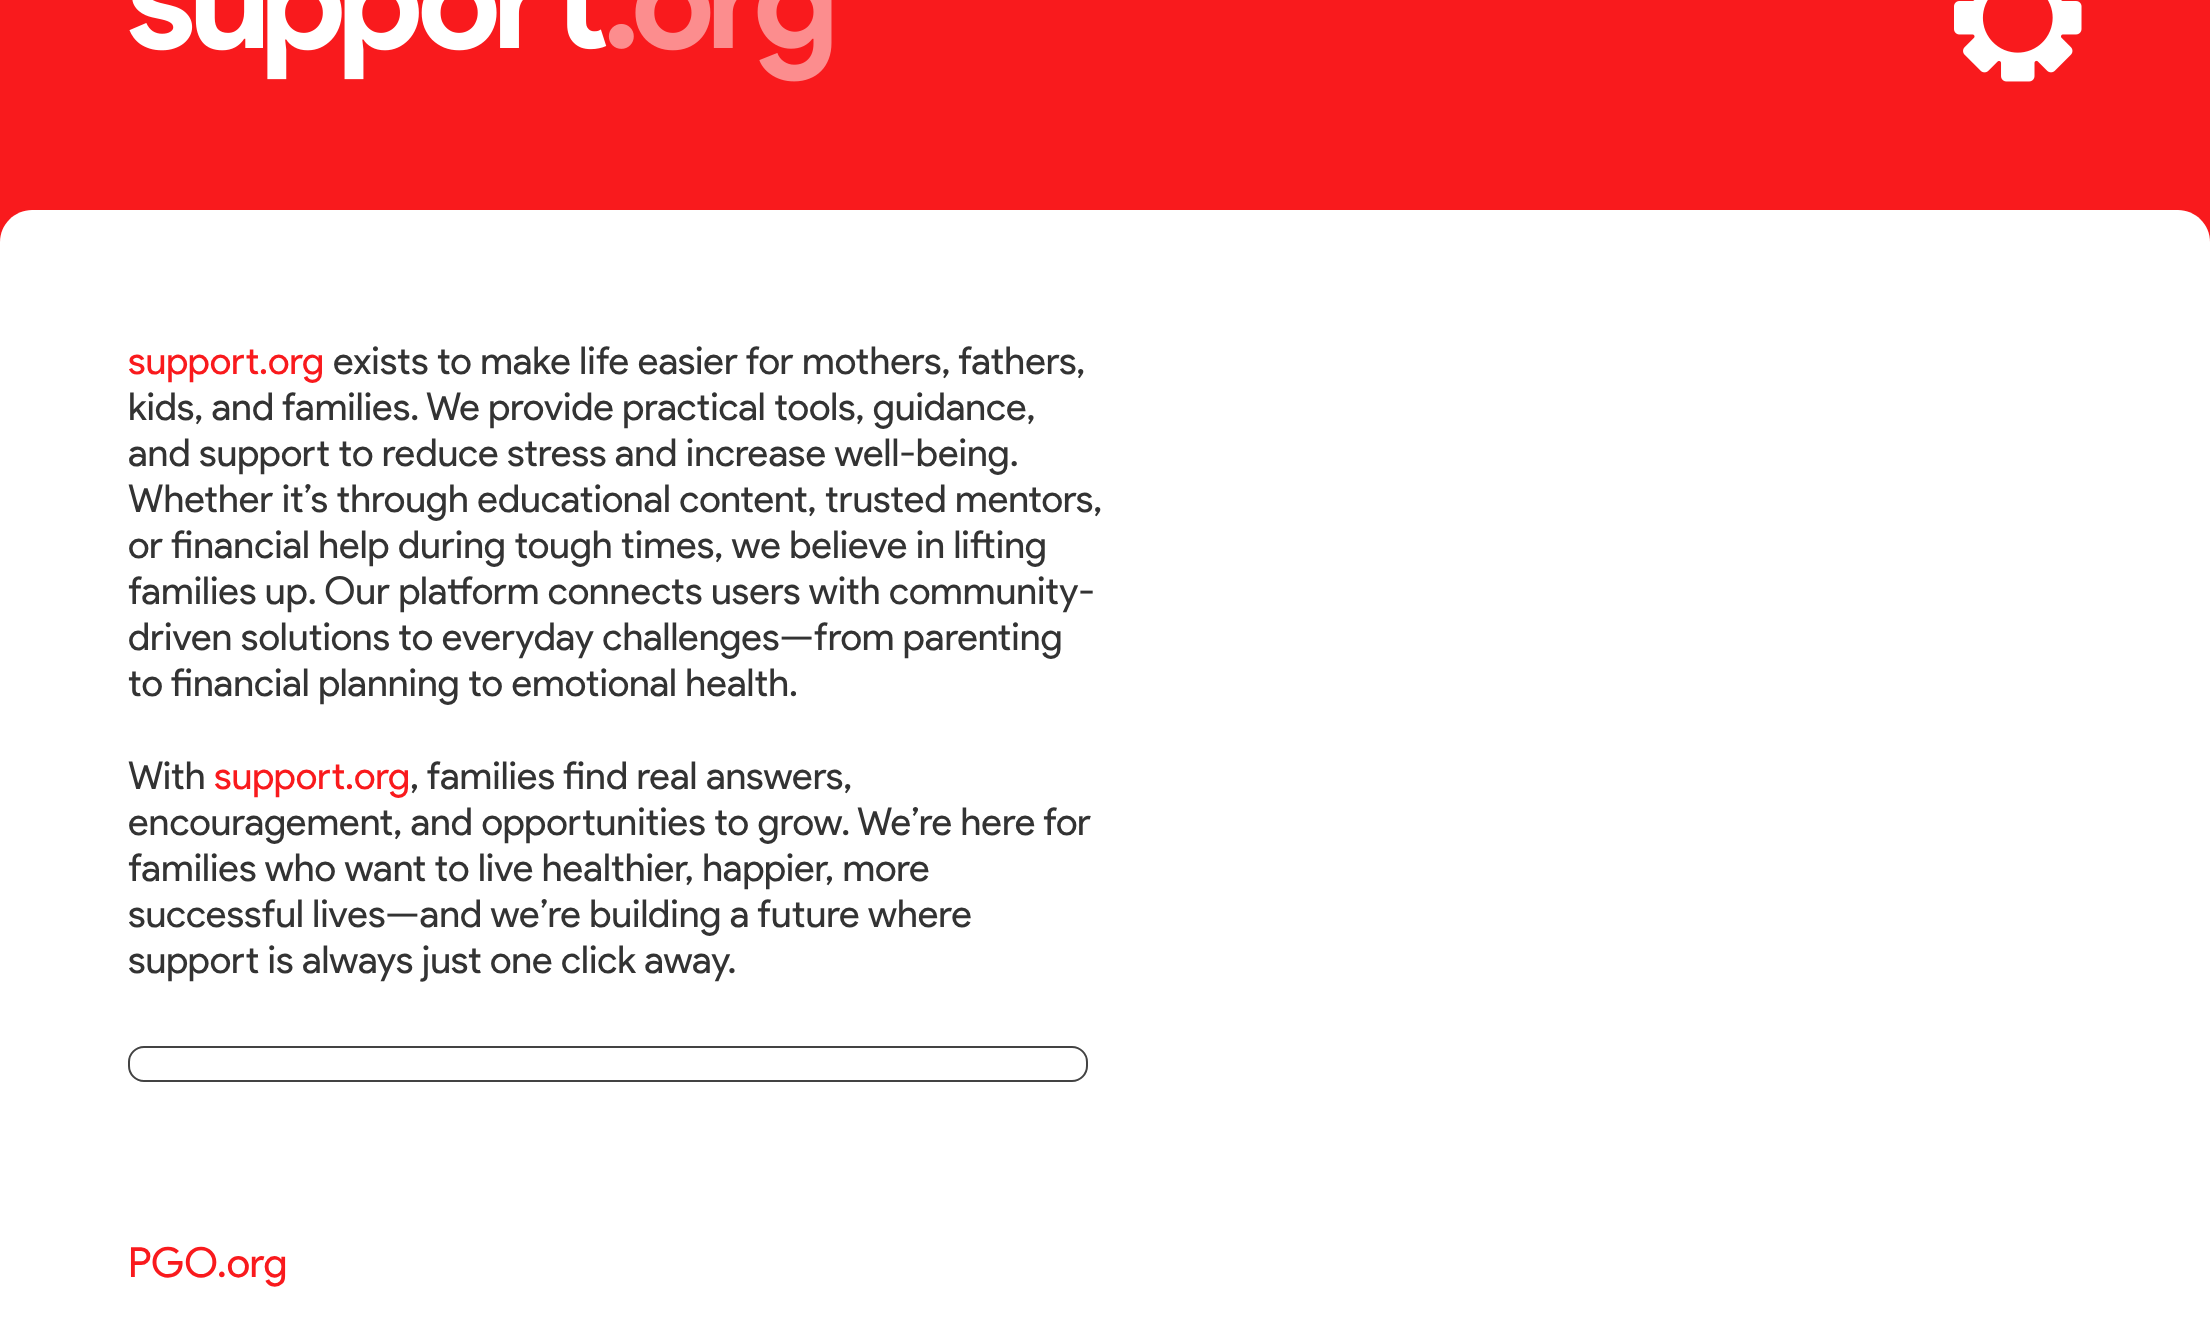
<!DOCTYPE html>
<meta charset="utf-8">
<style>body { margin: 0 } canvas { display: block }</style>
<canvas id="canvas" width="2210" height="1337"></canvas>
<script type="module">
  const canvas = document.getElementById("canvas");
  const g = canvas.getContext("2d");
  g.miterLimit = 4;
  g.fontKerning = "normal";
  function drawText(s, x, y, [font, color]) {
    g.font = font;
    g.fillStyle = color;
    g.fillText(s, x, y);
  }
  function fillBox(x, y, w, h, color) {
    g.fillStyle = color;
    g.fillRect(x, y, w, h);
  }
  async function drawPicture(src, x, y, w, h) {
    const img = new Image();
    img.src = src;
    await img.decode();
    g.drawImage(img, x, y, w, h);
  }

  const s1 = ["38.4px Product Sans", "#F91A1D"];
  const s2 = ["38.4px Product Sans", "#333333"];
  const s3 = ["41.5px Product Sans", "#F91A1D"];

  fillBox(0, 0, 2210, 1337, "#F91A1D");
  await drawPicture("pic1.png", 129, 0, 703, 82);
  await drawPicture("pic2.png", 1954, 0, 128, 82);
  g.fillStyle = "#FFFFFF";
  g.beginPath();
  g.moveTo(32, 210);
  g.lineTo(2178, 210);
  g.bezierCurveTo(2195.5, 210, 2210, 224.5, 2210, 242);
  g.lineTo(2210, 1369);
  g.lineTo(0, 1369);
  g.lineTo(0, 242);
  g.bezierCurveTo(0, 224.5, 14.5, 210, 32, 210);
  g.closePath();
  g.fill();
  drawText("support.org", 128, 374, s1);
  drawText("exists to make life easier for mothers, fathers,", 333, 374, s2);
  drawText("kids, and families. We provide practical tools, guidance,", 128, 420, s2);
  drawText("and support to reduce stress and increase well-being.", 128, 466, s2);
  drawText("Whether it’s through educational content, trusted mentors,", 128, 512, s2);
  drawText("or financial help during tough times, we believe in lifting", 128, 558, s2);
  drawText("families up. Our platform connects users with community-", 128, 604, s2);
  drawText("driven solutions to everyday challenges—from parenting", 128, 650, s2);
  drawText("to financial planning to emotional health.", 128, 696, s2);
  drawText("With", 128, 789, s2);
  drawText("support.org", 214, 789, s1);
  drawText(", families find real answers,", 410, 789, s2);
  drawText("encouragement, and opportunities to grow. We’re here for", 128, 835, s2);
  drawText("families who want to live healthier, happier, more", 128, 881, s2);
  drawText("successful lives—and we’re building a future where", 128, 927, s2);
  drawText("support is always just one click away.", 128, 973, s2);
  g.beginPath();
  g.roundRect(129, 1047, 958, 34, 15);
  g.strokeStyle = "#434343";
  g.lineWidth = 2;
  g.stroke();
  drawText("PGO.org", 128, 1277, s3);
</script>
